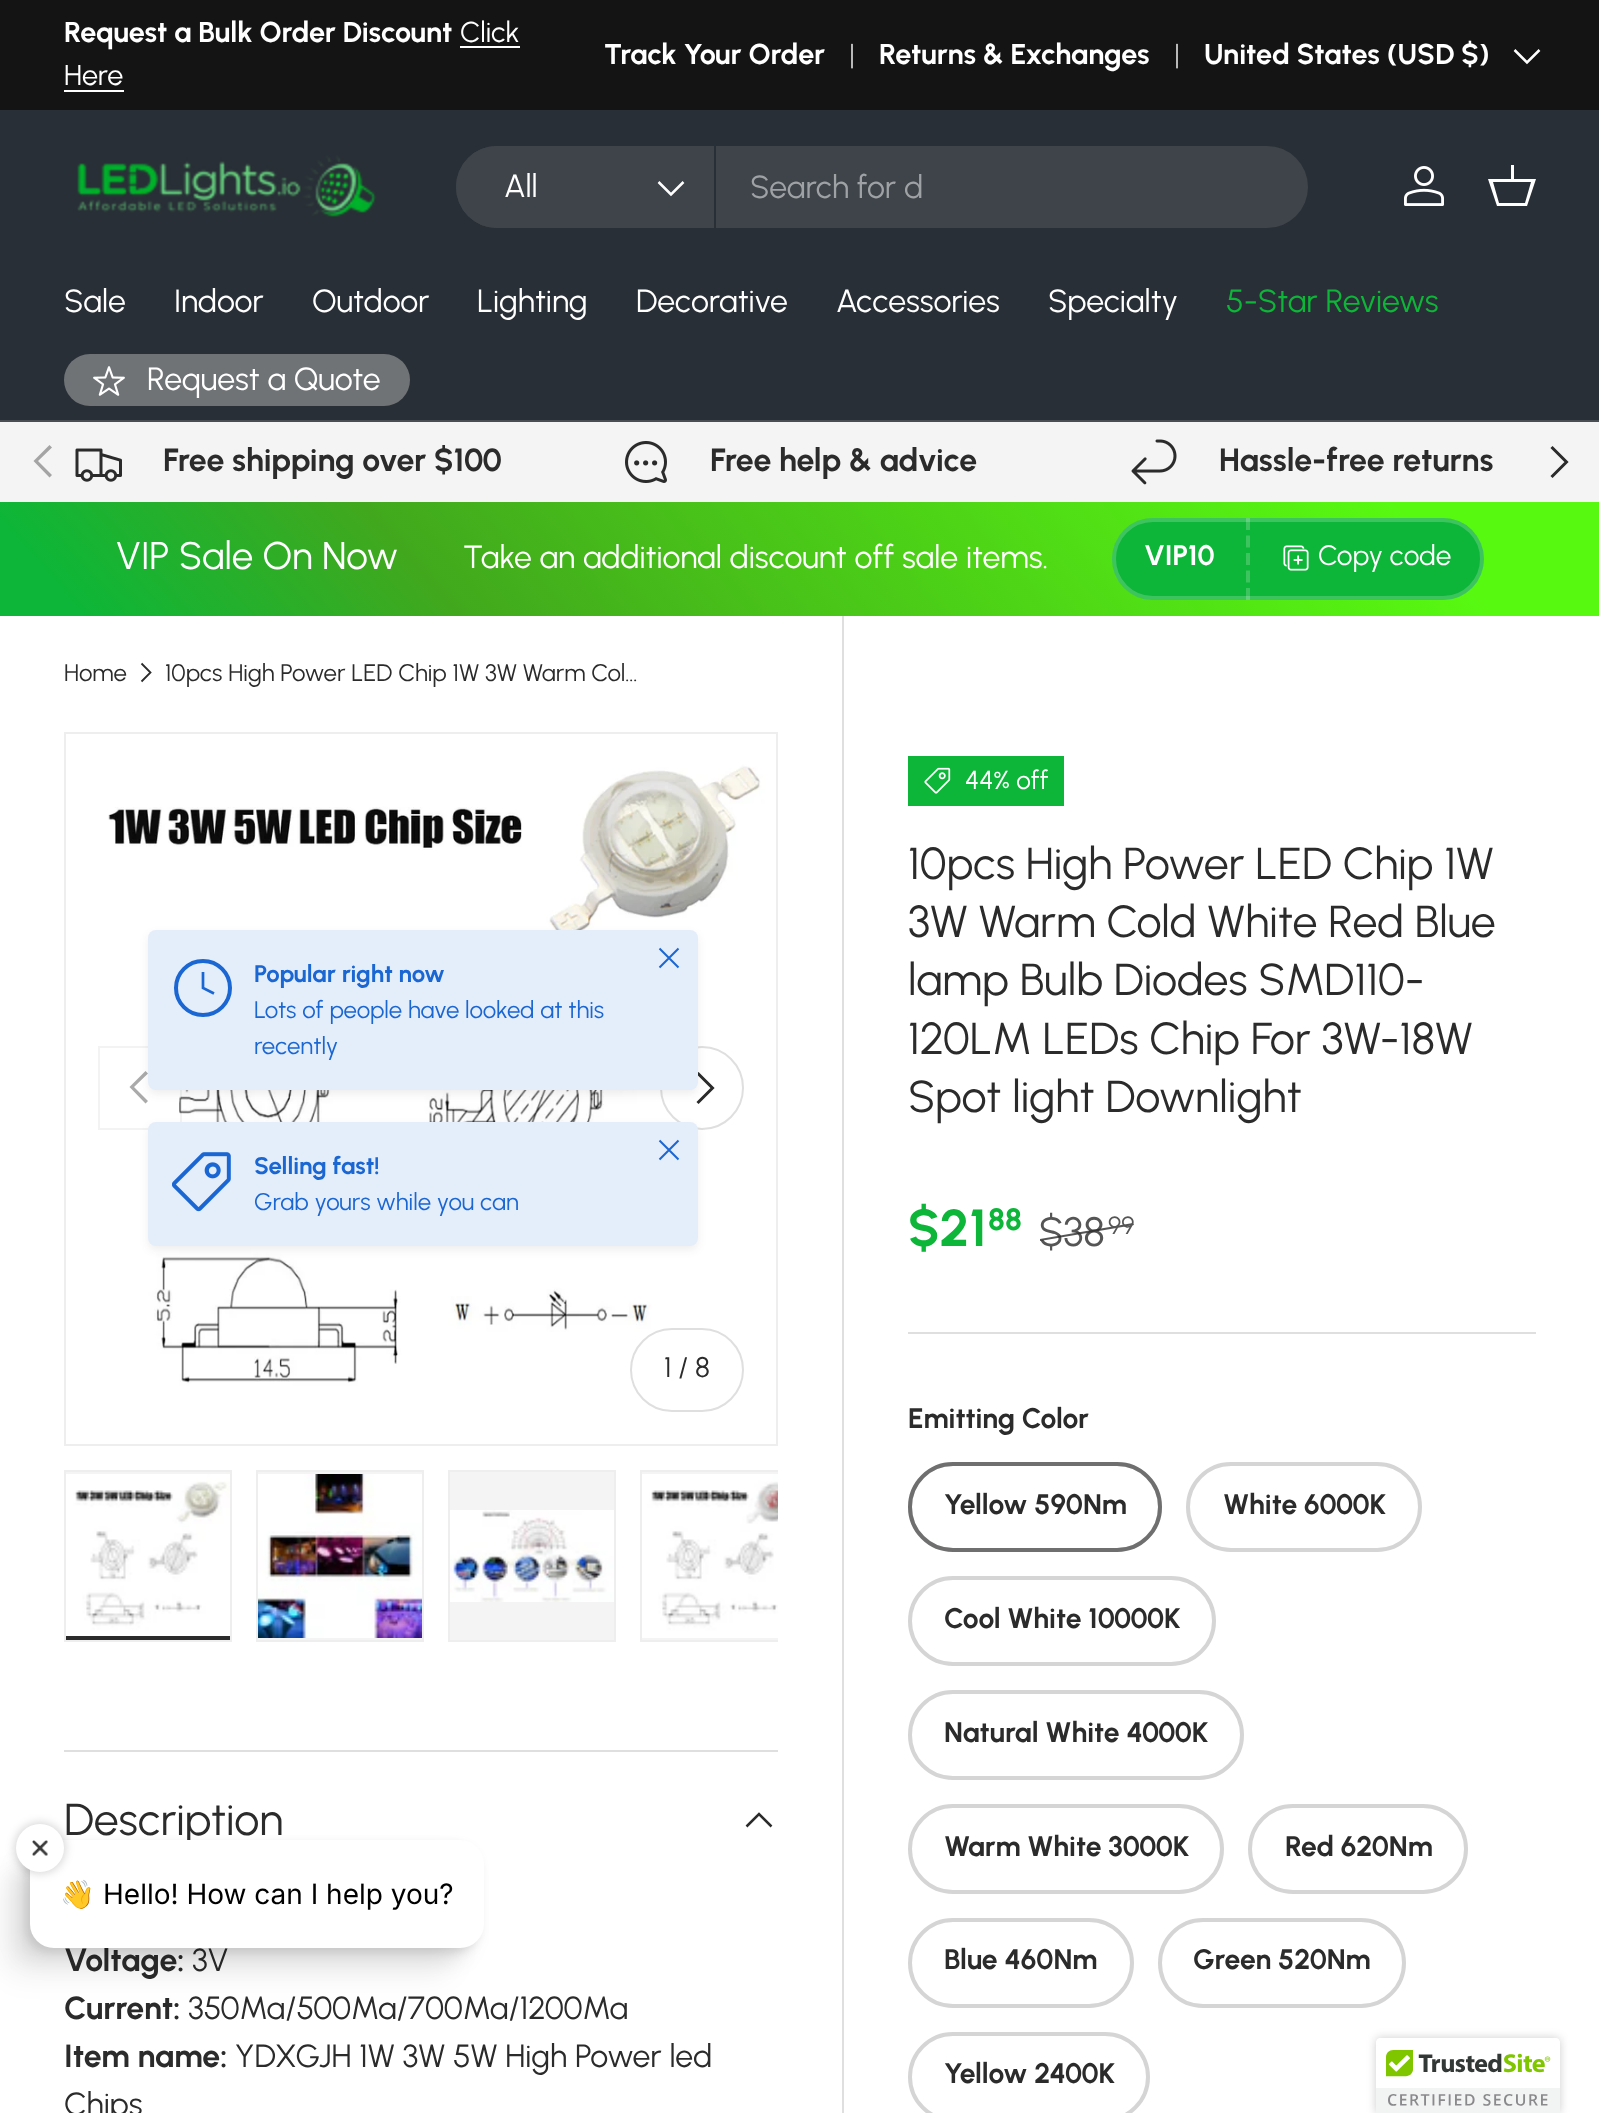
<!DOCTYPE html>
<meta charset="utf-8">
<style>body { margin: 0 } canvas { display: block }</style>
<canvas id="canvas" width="1599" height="2113"></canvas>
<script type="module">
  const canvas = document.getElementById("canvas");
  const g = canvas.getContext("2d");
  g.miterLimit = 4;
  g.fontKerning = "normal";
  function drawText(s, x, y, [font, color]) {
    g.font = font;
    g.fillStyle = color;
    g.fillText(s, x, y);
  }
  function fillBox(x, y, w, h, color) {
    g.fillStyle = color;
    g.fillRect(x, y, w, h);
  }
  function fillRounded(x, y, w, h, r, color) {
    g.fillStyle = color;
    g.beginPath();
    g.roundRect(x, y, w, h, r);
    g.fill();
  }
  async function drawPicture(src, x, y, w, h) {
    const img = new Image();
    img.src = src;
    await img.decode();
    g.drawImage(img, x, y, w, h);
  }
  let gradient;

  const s1 = ["bold 28.75px Urbanist", "#FFFFFF"];
  const s2 = ["28.75px Urbanist", "#FFFFFF"];
  const s3 = ["28.75px Urbanist", "#B9B9B9"];
  const s4 = ["32px Urbanist", "#FFFFFF"];
  const s5 = ["32px Urbanist", "#9FA2A5"];
  const s6 = ["32px Urbanist", "#0DB638"];
  const s7 = ["bold 32px Urbanist", "#2A2B2A"];
  const s8 = ["38.5px Urbanist", "#FFFFFF"];
  const s9 = ["bold 28.25px Urbanist", "#FFFFFF"];
  const s10 = ["28px Urbanist", "#FFFFFF"];
  const s11 = ["24px Urbanist", "#2A2B2A"];
  const s12 = ["bold 24px Urbanist", "#1A66D2"];
  const s13 = ["24px Urbanist", "#1A66D2"];
  const s14 = ["28.25px Urbanist", "#2A2B2A"];
  const s15 = ["26px Urbanist", "#FFFFFF"];
  const s16 = ["44.75px Urbanist", "#2A2B2A"];
  const s17 = ["bold 52px Urbanist", "#0DB638"];
  const s18 = ["bold 31px Urbanist", "#0DB638"];
  const s19 = ["41px Urbanist", "#555555"];
  const s20 = ["25px Urbanist", "#555555"];
  const s21 = ["bold 28.25px Urbanist", "#2A2B2A"];
  const s22 = ["32px Urbanist", "#2A2B2A"];
  const s23 = ["28px Noto Color Emoji", "#000000"];
  const s24 = ["28px Inter", "#000000"];

  fillBox(0, 0, 1599, 2113, "#FFFFFF");
  fillBox(0, 0, 1599, 110, "#141414");
  drawText("Request a Bulk Order Discount", 64, 42, s1);
  drawText("Click", 460, 42, s2);
  fillBox(460, 46, 60, 2, "#FFFFFF");
  drawText("Here", 64, 85, s2);
  fillBox(64, 90, 60, 2, "#FFFFFF");
  drawText("Track Your Order", 604, 64, s1);
  drawText("|", 849, 64, s3);
  drawText("Returns & Exchanges", 879, 64, s1);
  drawText("|", 1174, 64, s3);
  drawText("United States (USD $)", 1204, 64, s1);
  g.beginPath();
  g.moveTo(1539.5, 50);
  g.lineTo(1527, 62.5);
  g.lineTo(1514.5, 50);
  g.strokeStyle = "#FFFFFF";
  g.lineWidth = 2.5;
  g.stroke();
  fillBox(0, 110, 1599, 310, "#292F36");
  fillBox(0, 420, 1599, 2, "#494E54");
  await drawPicture("pic1.png", 77, 155, 300, 62);
  fillRounded(456, 146, 852, 82, 41, "#3E444A");
  g.beginPath();
  g.roundRect(456, 146, 260, 82, [41, 0, 0, 41]);
  g.fill();
  fillBox(714, 146, 2, 82, "#292F36");
  drawText("All", 504, 197, s4);
  g.beginPath();
  g.moveTo(683.5, 182);
  g.lineTo(671, 194.5);
  g.lineTo(658.5, 182);
  g.stroke();
  drawText("Search for d", 750, 198, s5);
  await drawPicture("pic2.png", 1404, 166, 40, 40);
  g.fillStyle = "#FFFFFF";
  g.beginPath();
  g.moveTo(1511, 179);
  g.lineTo(1511, 165);
  g.lineTo(1514, 165);
  g.lineTo(1514, 179);
  g.lineTo(1536, 179);
  g.lineTo(1527, 206);
  g.lineTo(1497, 206);
  g.lineTo(1488, 179);
  g.closePath();
  g.moveTo(1493, 182);
  g.lineTo(1499, 203);
  g.lineTo(1525, 203);
  g.lineTo(1531, 182);
  g.closePath();
  g.fill();
  drawText("Sale", 64, 312, s4);
  drawText("Indoor", 174, 312, s4);
  drawText("Outdoor", 312, 312, s4);
  drawText("Lighting", 477, 312, s4);
  drawText("Decorative", 636, 312, s4);
  drawText("Accessories", 836, 312, s4);
  drawText("Specialty", 1048, 312, s4);
  drawText("5-Star Reviews", 1226, 312, s6);
  gradient = g.createLinearGradient(-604, 257, 386, 503);
  gradient.addColorStop(0.6, "#8D9092");
  gradient.addColorStop(0.6, "#6F7376");
  gradient.addColorStop(1, "#6F7376");
  g.fillStyle = gradient;
  g.beginPath();
  g.roundRect(64, 354, 346, 52, 26);
  g.fill();
  await drawPicture("pic3.png", 93, 366, 32, 30);
  drawText("Request a Quote", 147, 390, s4);
  fillBox(0, 422, 1599, 80, "#F4F4F4");
  g.fillStyle = "#A3A4A3";
  g.beginPath();
  g.moveTo(33.5, 461);
  g.lineTo(49.5, 445);
  g.lineTo(52, 447.5);
  g.lineTo(38, 461);
  g.lineTo(52, 475);
  g.lineTo(49.5, 477.5);
  g.closePath();
  g.fill();
  g.beginPath();
  g.moveTo(1551.5, 447);
  g.lineTo(1566.5, 462);
  g.lineTo(1551.5, 477);
  g.strokeStyle = "#2A2B2A";
  g.lineWidth = 3;
  g.stroke();
  await drawPicture("pic4.png", 75, 448, 47, 34);
  drawText("Free shipping over $100", 163, 471, s7);
  await drawPicture("pic5.png", 625, 441, 42, 42);
  drawText("Free help & advice", 710, 471, s7);
  await drawPicture("pic6.png", 1131, 439, 46, 46);
  drawText("Hassle-free returns", 1219, 471, s7);
  gradient = g.createLinearGradient(316, 980, 1284, 138);
  gradient.addColorStop(0.05, "#0DB638");
  gradient.addColorStop(0.27, "#41A81D");
  gradient.addColorStop(0.88, "#58F911");
  g.fillStyle = gradient;
  g.fillRect(0, 502, 1599, 114);
  drawText("VIP Sale On Now", 116, 569, s8);
  drawText("Take an additional discount off sale items.", 463, 568, s4);
  fillRounded(1112, 518, 372, 82, 41, "#0DB638");
  g.beginPath();
  g.roundRect(1114, 520, 368, 78, 39);
  g.strokeStyle = "rgba(255, 255, 255, 0.2)";
  g.lineWidth = 4;
  g.stroke();
  drawText("VIP10", 1144, 565, s9);
  g.beginPath();
  g.moveTo(1248, 518);
  g.lineTo(1248, 600);
  g.setLineDash([12, 5.5]);
  g.stroke();
  await drawPicture("pic7.png", 1283, 545, 26, 26);
  drawText("Copy code", 1318, 565, s10);
  drawText("Home", 64, 681, s11);
  g.beginPath();
  g.moveTo(141.5, 663.5);
  g.lineTo(150.5, 672.5);
  g.lineTo(141.5, 681.5);
  g.strokeStyle = "#2A2B2A";
  g.lineWidth = 1.8;
  g.setLineDash([]);
  g.stroke();
  drawText("10pcs High Power LED Chip 1W 3W Warm Col…", 165, 681, s11);
  g.strokeStyle = "#EEEEEE";
  g.lineWidth = 2;
  g.strokeRect(65, 733, 712, 712);
  await drawPicture("pic8.png", 66, 734, 710, 710);
  g.fillStyle = "rgba(255, 255, 255, 0.4)";
  g.beginPath();
  g.arc(140, 1088, 42, 0, Math.PI * 2);
  g.fill();
  g.strokeStyle = "rgba(42, 43, 42, 0.06)";
  g.strokeRect(99, 1047, 82, 82);
  g.fillStyle = "#AAAAAA";
  g.beginPath();
  g.moveTo(129.5, 1087);
  g.lineTo(145.5, 1071);
  g.lineTo(148, 1073.5);
  g.lineTo(134, 1087);
  g.lineTo(148, 1101);
  g.lineTo(145.5, 1103.5);
  g.closePath();
  g.fill();
  g.beginPath();
  g.arc(702, 1088, 41, 0, Math.PI * 2);
  g.strokeStyle = "#DFDFDF";
  g.stroke();
  g.beginPath();
  g.moveTo(697.5, 1073);
  g.lineTo(712.5, 1088);
  g.lineTo(697.5, 1103);
  g.strokeStyle = "#2A2B2A";
  g.lineWidth = 3;
  g.stroke();
  g.fillStyle = "rgba(33, 43, 54, 0.08)";
  g.filter = "blur(4px)";
  g.beginPath();
  g.roundRect(148, 934, 550, 160, 8);
  g.fill();
  g.filter = "none";
  fillRounded(148, 930, 550, 160, 8, "#E4EDFA");
  g.beginPath();
  g.arc(203, 988, 27, 0, Math.PI * 2);
  g.strokeStyle = "#1A66D2";
  g.lineWidth = 4;
  g.stroke();
  g.beginPath();
  g.moveTo(203, 972);
  g.lineTo(203, 988);
  g.lineTo(214, 993.5);
  g.lineWidth = 2.7;
  g.stroke();
  drawText("Popular right now", 254, 982, s12);
  drawText("Lots of people have looked at this", 254, 1018, s13);
  drawText("recently", 254, 1054, s13);
  g.beginPath();
  g.moveTo(659.5, 967.5);
  g.lineTo(678.5, 948.5);
  g.moveTo(659.5, 948.5);
  g.lineTo(678.5, 967.5);
  g.lineWidth = 2;
  g.lineJoin = "round";
  g.stroke();
  g.fillStyle = "rgba(33, 43, 54, 0.08)";
  g.filter = "blur(4px)";
  g.beginPath();
  g.roundRect(148, 1126, 550, 124, 8);
  g.fill();
  g.filter = "none";
  fillRounded(148, 1122, 550, 124, 8, "#E4EDFA");
  await drawPicture("pic9.png", 172, 1152, 59, 60);
  drawText("Selling fast!", 254, 1174, s12);
  drawText("Grab yours while you can", 254, 1210, s13);
  g.beginPath();
  g.moveTo(659.5, 1159.5);
  g.lineTo(678.5, 1140.5);
  g.moveTo(659.5, 1140.5);
  g.lineTo(678.5, 1159.5);
  g.stroke();
  g.beginPath();
  g.roundRect(631, 1329, 112, 82, 41);
  g.strokeStyle = "#DFDFDF";
  g.lineJoin = "miter";
  g.stroke();
  drawText("1 / 8", 664, 1377, s14);
  fillBox(66, 1472, 164, 2, "#F4F4F4");
  g.strokeStyle = "#EEEEEE";
  g.strokeRect(65, 1471, 166, 170);
  await drawPicture("pic10.png", 66, 1474, 164, 162);
  fillBox(66, 1636, 164, 4, "#2A2B2A");
  g.fillStyle = "#F4F4F4";
  g.beginPath();
  g.rect(257, 1471, 166, 170);
  g.fill();
  g.stroke();
  await drawPicture("pic11.png", 258, 1474, 164, 164);
  g.beginPath();
  g.rect(449, 1471, 166, 170);
  g.fill();
  g.stroke();
  await drawPicture("pic12.png", 450, 1510, 164, 92);
  fillBox(642, 1472, 136, 168, "#F4F4F4");
  g.save();
  g.beginPath();
  g.rect(64, 1470, 714, 184);
  g.clip();
  g.strokeRect(641, 1471, 166, 170);
  g.restore();
  await drawPicture("pic13.png", 642, 1474, 136, 164);
  fillBox(842, 616, 2, 1497, "#DFDFDF");
  fillBox(908, 756, 156, 50, "#0DB638");
  await drawPicture("pic14.png", 924, 767, 27, 27);
  drawText("44% off", 965, 789, s15);
  drawText("10pcs High Power LED Chip 1W", 908, 879, s16);
  drawText("3W Warm Cold White Red Blue", 908, 937, s16);
  drawText("lamp Bulb Diodes SMD110-", 908, 995, s16);
  drawText("120LM LEDs Chip For 3W-18W", 908, 1054, s16);
  drawText("Spot light Downlight", 908, 1112, s16);
  drawText("$21", 908, 1246, s17);
  drawText("88", 988, 1230, s18);
  drawText("$38", 1039, 1246, s19);
  g.fillStyle = "rgba(42, 43, 42, 0.8)";
  g.beginPath();
  g.moveTo(1040, 1239);
  g.lineTo(1133, 1223);
  g.lineTo(1134, 1225);
  g.lineTo(1040, 1241);
  g.closePath();
  g.fill();
  drawText("99", 1108, 1234, s20);
  fillBox(908, 1332, 628, 2, "#DFDFDF");
  drawText("Emitting Color", 908, 1428, s21);
  g.beginPath();
  g.roundRect(910, 1464, 250, 86, 43);
  g.strokeStyle = "#D4D5D4";
  g.lineWidth = 4;
  g.stroke();
  g.beginPath();
  g.roundRect(910, 1464, 250, 86, 43);
  g.strokeStyle = "rgba(42, 43, 42, 0.6)";
  g.stroke();
  drawText("Yellow 590Nm", 944, 1514, s21);
  g.beginPath();
  g.roundRect(1188, 1464, 232, 86, 43);
  g.strokeStyle = "#D4D5D4";
  g.stroke();
  drawText("White 6000K", 1223, 1514, s21);
  g.beginPath();
  g.roundRect(910, 1578, 304, 86, 43);
  g.stroke();
  drawText("Cool White 10000K", 944, 1628, s21);
  g.beginPath();
  g.roundRect(910, 1692, 332, 86, 43);
  g.stroke();
  drawText("Natural White 4000K", 944, 1742, s21);
  g.beginPath();
  g.roundRect(910, 1806, 312, 86, 43);
  g.stroke();
  drawText("Warm White 3000K", 944, 1856, s21);
  g.beginPath();
  g.roundRect(1250, 1806, 216, 86, 43);
  g.stroke();
  drawText("Red 620Nm", 1285, 1856, s21);
  g.beginPath();
  g.roundRect(910, 1920, 222, 86, 43);
  g.stroke();
  drawText("Blue 460Nm", 944, 1969, s21);
  g.beginPath();
  g.roundRect(1160, 1920, 244, 86, 43);
  g.stroke();
  drawText("Green 520Nm", 1193, 1969, s21);
  g.beginPath();
  g.roundRect(910, 2034, 238, 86, 43);
  g.stroke();
  drawText("Yellow 2400K", 944, 2083, s21);
  fillBox(64, 1750, 714, 2, "#DFDFDF");
  drawText("Description", 64, 1835, s16);
  g.beginPath();
  g.moveTo(771.5, 1826.5);
  g.lineTo(759, 1814);
  g.lineTo(746.5, 1826.5);
  g.strokeStyle = "#2A2B2A";
  g.lineWidth = 2.5;
  g.stroke();
  drawText("Voltage:", 64, 1971, s7);
  drawText("3V", 192, 1971, s22);
  drawText("Current:", 64, 2019, s7);
  drawText("350Ma/500Ma/700Ma/1200Ma", 188, 2019, s22);
  drawText("Item name:", 64, 2067, s7);
  drawText("YDXGJH 1W 3W 5W High Power led", 235, 2067, s22);
  drawText("Chips", 64, 2115, s22);
  g.fillStyle = "rgba(0, 0, 0, 0.1)";
  g.filter = "blur(5px)";
  g.beginPath();
  g.roundRect(26, 1844, 454, 108, 24);
  g.fill();
  g.filter = "none";
  g.fillStyle = "rgba(0, 0, 0, 0.09)";
  g.filter = "blur(10px)";
  g.beginPath();
  g.roundRect(16, 1854, 454, 108, 24);
  g.fill();
  g.filter = "none";
  g.fillStyle = "rgba(0, 0, 0, 0.05)";
  g.filter = "blur(13px)";
  g.beginPath();
  g.roundRect(0, 1870, 454, 108, 24);
  g.fill();
  g.filter = "none";
  fillRounded(30, 1840, 454, 108, 24, "#FFFFFF");
  g.fillStyle = "rgba(0, 0, 0, 0.15)";
  g.filter = "blur(4px)";
  g.beginPath();
  g.roundRect(14, 1822, 52, 52, 26);
  g.fill();
  g.filter = "none";
  g.fillStyle = "#FFFFFF";
  g.beginPath();
  g.arc(40, 1848, 24, 0, Math.PI * 2);
  g.fill();
  await drawPicture("pic15.png", 32, 1840, 16, 16);
  drawText("👋", 60, 1904, s23);
  drawText("Hello! How can I help you?", 103, 1904, s24);
  g.fillStyle = "rgba(0, 0, 0, 0.2)";
  g.filter = "blur(5px)";
  g.beginPath();
  g.roundRect(1376, 2038, 184, 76, 4);
  g.fill();
  g.filter = "none";
  g.fillStyle = "#FFFFFF";
  g.beginPath();
  g.moveTo(1380, 2038);
  g.lineTo(1556, 2038);
  g.bezierCurveTo(1558, 2038, 1560, 2040, 1560, 2042);
  g.lineTo(1560, 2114);
  g.lineTo(1376, 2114);
  g.lineTo(1376, 2042);
  g.bezierCurveTo(1376, 2040, 1378, 2038, 1380, 2038);
  g.closePath();
  g.fill();
  await drawPicture("pic16.png", 1376, 2040, 184, 73);
</script>
